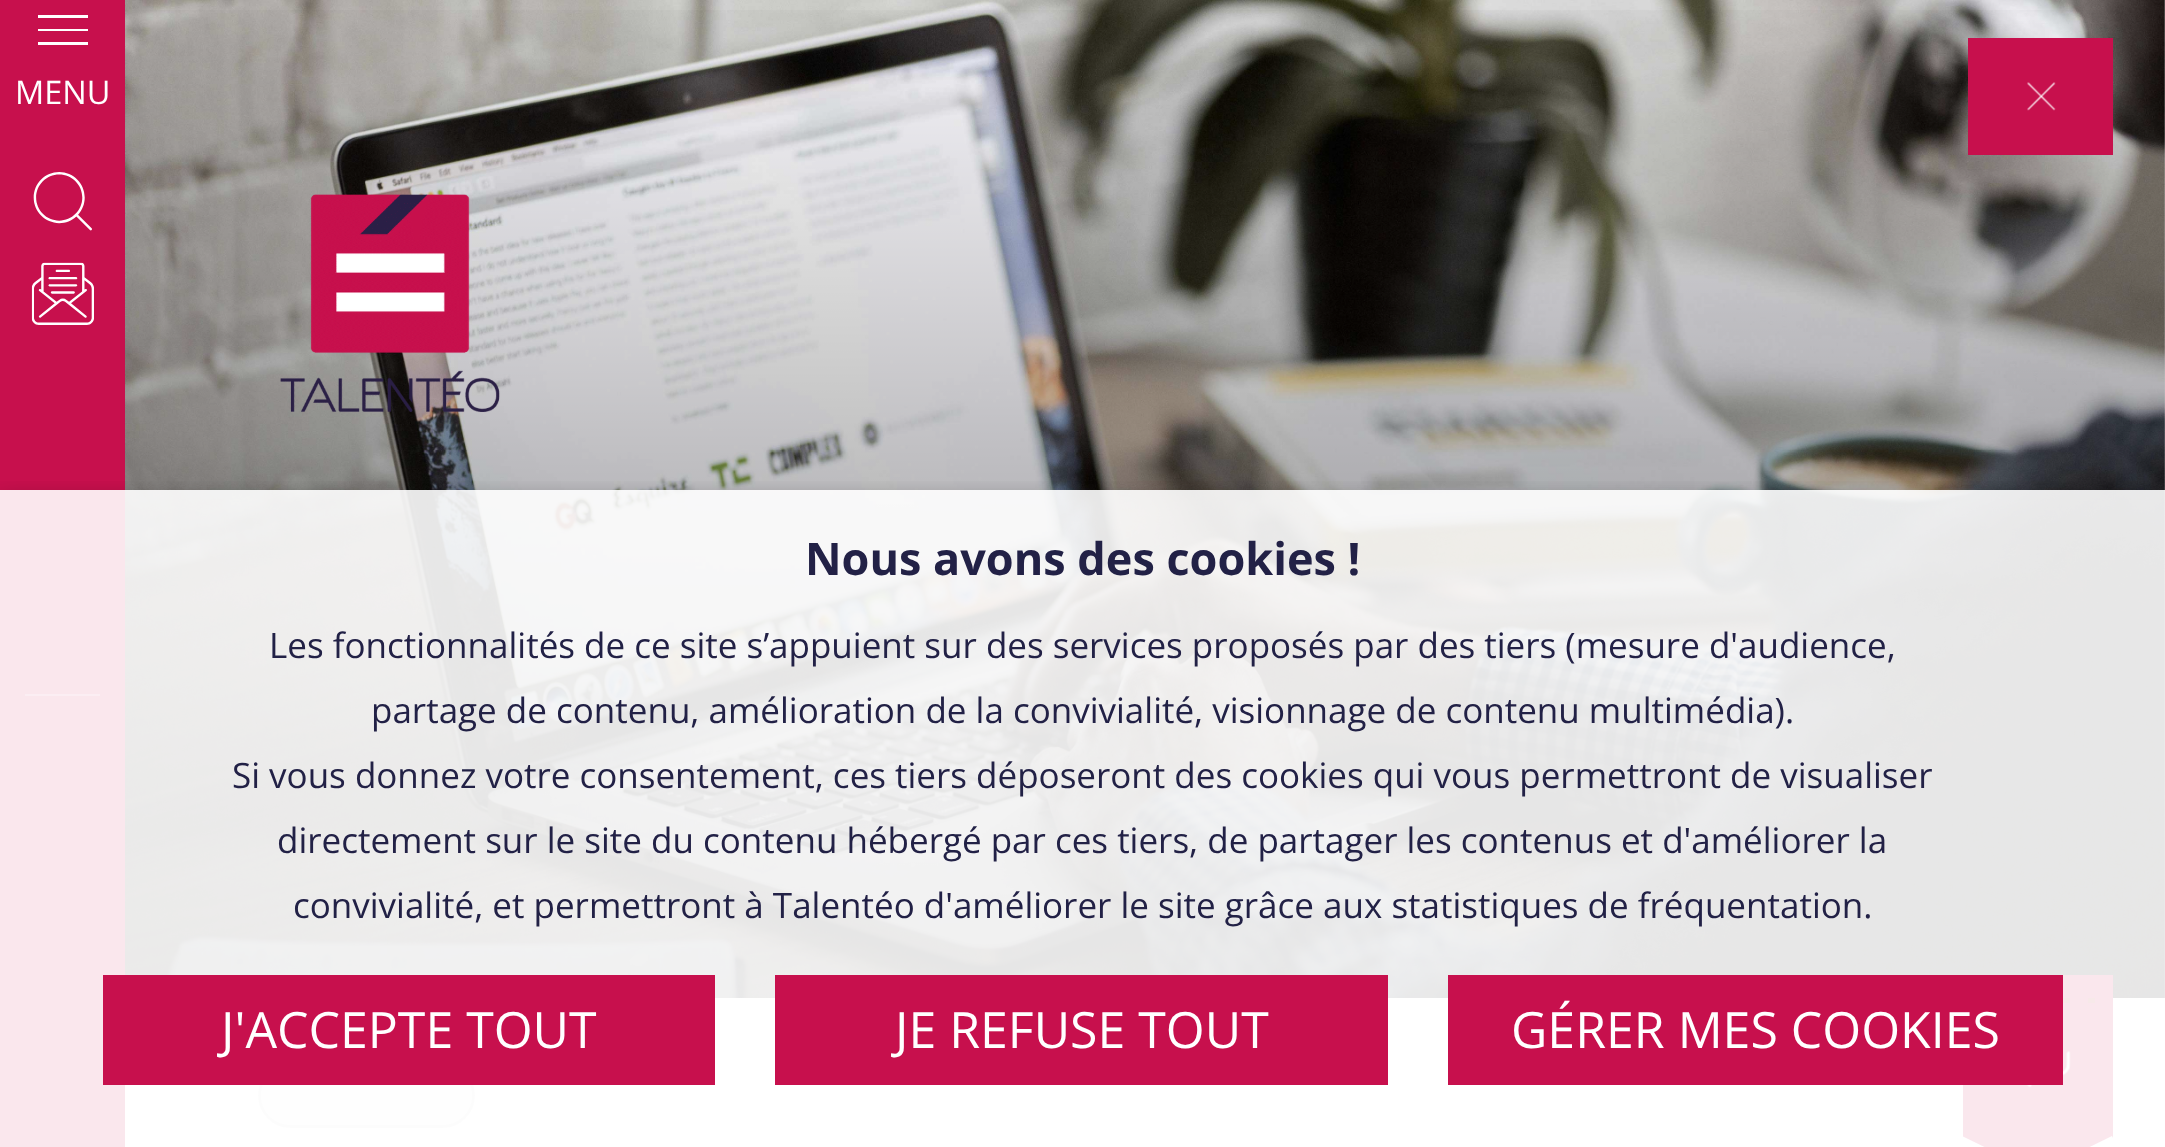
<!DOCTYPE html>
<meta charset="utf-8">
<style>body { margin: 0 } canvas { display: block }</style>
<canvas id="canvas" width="2165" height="1147"></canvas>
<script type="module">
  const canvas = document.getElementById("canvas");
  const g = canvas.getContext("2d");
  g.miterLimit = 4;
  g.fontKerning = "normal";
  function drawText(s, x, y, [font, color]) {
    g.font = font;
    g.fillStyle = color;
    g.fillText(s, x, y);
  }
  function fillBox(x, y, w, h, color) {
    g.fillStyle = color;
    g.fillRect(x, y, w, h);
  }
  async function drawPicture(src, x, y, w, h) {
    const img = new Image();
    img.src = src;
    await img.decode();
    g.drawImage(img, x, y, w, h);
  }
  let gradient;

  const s1 = ["32.5px Open Sans", "#FFFFFF"];
  const s2 = ["bold 45px Open Sans", "#222146"];
  const s3 = ["35px Open Sans", "#222146"];
  const s4 = ["50px Open Sans", "#FFFFFF"];

  fillBox(0, 0, 2165, 1147, "#FFFFFF");
  fillBox(0, 0, 125, 1147, "#C7104D");
  fillBox(38, 29, 50, 2, "#FFFFFF");
  fillBox(38, 15, 50, 3, "#FFFFFF");
  fillBox(38, 42, 50, 3, "#FFFFFF");
  drawText("MENU", 15, 104, s1);
  await drawPicture("pic1.png", 33, 172, 59, 59);
  await drawPicture("pic2.png", 31, 262, 63, 63);
  fillBox(25, 694, 75, 2, "#D85882");
  await drawPicture("pic3.png", 125, 0, 2040, 998);
  gradient = g.createLinearGradient(1145, -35, 1145, 998);
  gradient.addColorStop(0, "rgba(0, 0, 0, 0)");
  gradient.addColorStop(1, "rgba(0, 0, 0, 0.5)");
  g.fillStyle = gradient;
  g.fillRect(125, 10, 2040, 988);
  fillBox(1968, 38, 145, 117, "#C7104D");
  await drawPicture("pic4.png", 2027, 82, 29, 29);
  g.fillStyle = "#F4F4F4";
  g.beginPath();
  g.roundRect(259.5, 1064.5, 214, 62, 31);
  g.fill();
  g.strokeStyle = "#E2E2E2";
  g.lineWidth = 3;
  g.stroke();
  fillBox(1963, 975, 150, 172, "#C7104D");
  fillBox(2055, 998, 15, 5, "#B11F24");
  fillBox(2088, 998, 7, 5, "#B11F24");
  await drawPicture("pic5.png", 2026, 1051, 45, 37);
  g.save();
  g.beginPath();
  g.rect(1963, 1135, 150, 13);
  g.clip();
  g.fillStyle = "#FFFFFF";
  g.beginPath();
  g.moveTo(1962, 1136);
  g.lineTo(2097, 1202);
  g.lineTo(2078, 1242);
  g.lineTo(1943, 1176);
  g.closePath();
  g.fill();
  g.beginPath();
  g.moveTo(1978, 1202);
  g.lineTo(2112, 1136);
  g.lineTo(2132, 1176);
  g.lineTo(1997, 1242);
  g.closePath();
  g.fill();
  g.restore();
  await drawPicture("pic6.png", 280, 194, 220, 219);
  g.save();
  g.beginPath();
  g.rect(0, 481, 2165, 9);
  g.clip();
  g.fillStyle = "rgba(0, 0, 0, 0.5)";
  g.filter = "blur(12.5px)";
  g.beginPath();
  g.rect(0, 503, 2165, 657);
  g.fill();
  g.filter = "none";
  g.restore();
  fillBox(0, 490, 2165, 657, "rgba(255, 255, 255, 0.9)");
  drawText("Nous avons des cookies !", 805, 575, s2);
  drawText("Les fonctionnalités de ce site s’appuient sur des services proposés par des tiers (mesure d'audience,", 269, 658, s3);
  drawText("partage de contenu, amélioration de la convivialité, visionnage de contenu multimédia).", 371, 723, s3);
  drawText("Si vous donnez votre consentement, ces tiers déposeront des cookies qui vous permettront de visualiser", 232, 788, s3);
  drawText("directement sur le site du contenu hébergé par ces tiers, de partager les contenus et d'améliorer la", 277, 853, s3);
  drawText("convivialité, et permettront à Talentéo d'améliorer le site grâce aux statistiques de fréquentation.", 293, 918, s3);
  fillBox(103, 975, 612, 110, "#C7104D");
  drawText("J'ACCEPTE TOUT", 221, 1048, s4);
  fillBox(775, 975, 613, 110, "#C7104D");
  drawText("JE REFUSE TOUT", 895, 1048, s4);
  fillBox(1448, 975, 615, 110, "#C7104D");
  drawText("GÉRER MES COOKIES", 1511, 1048, s4);
</script>
